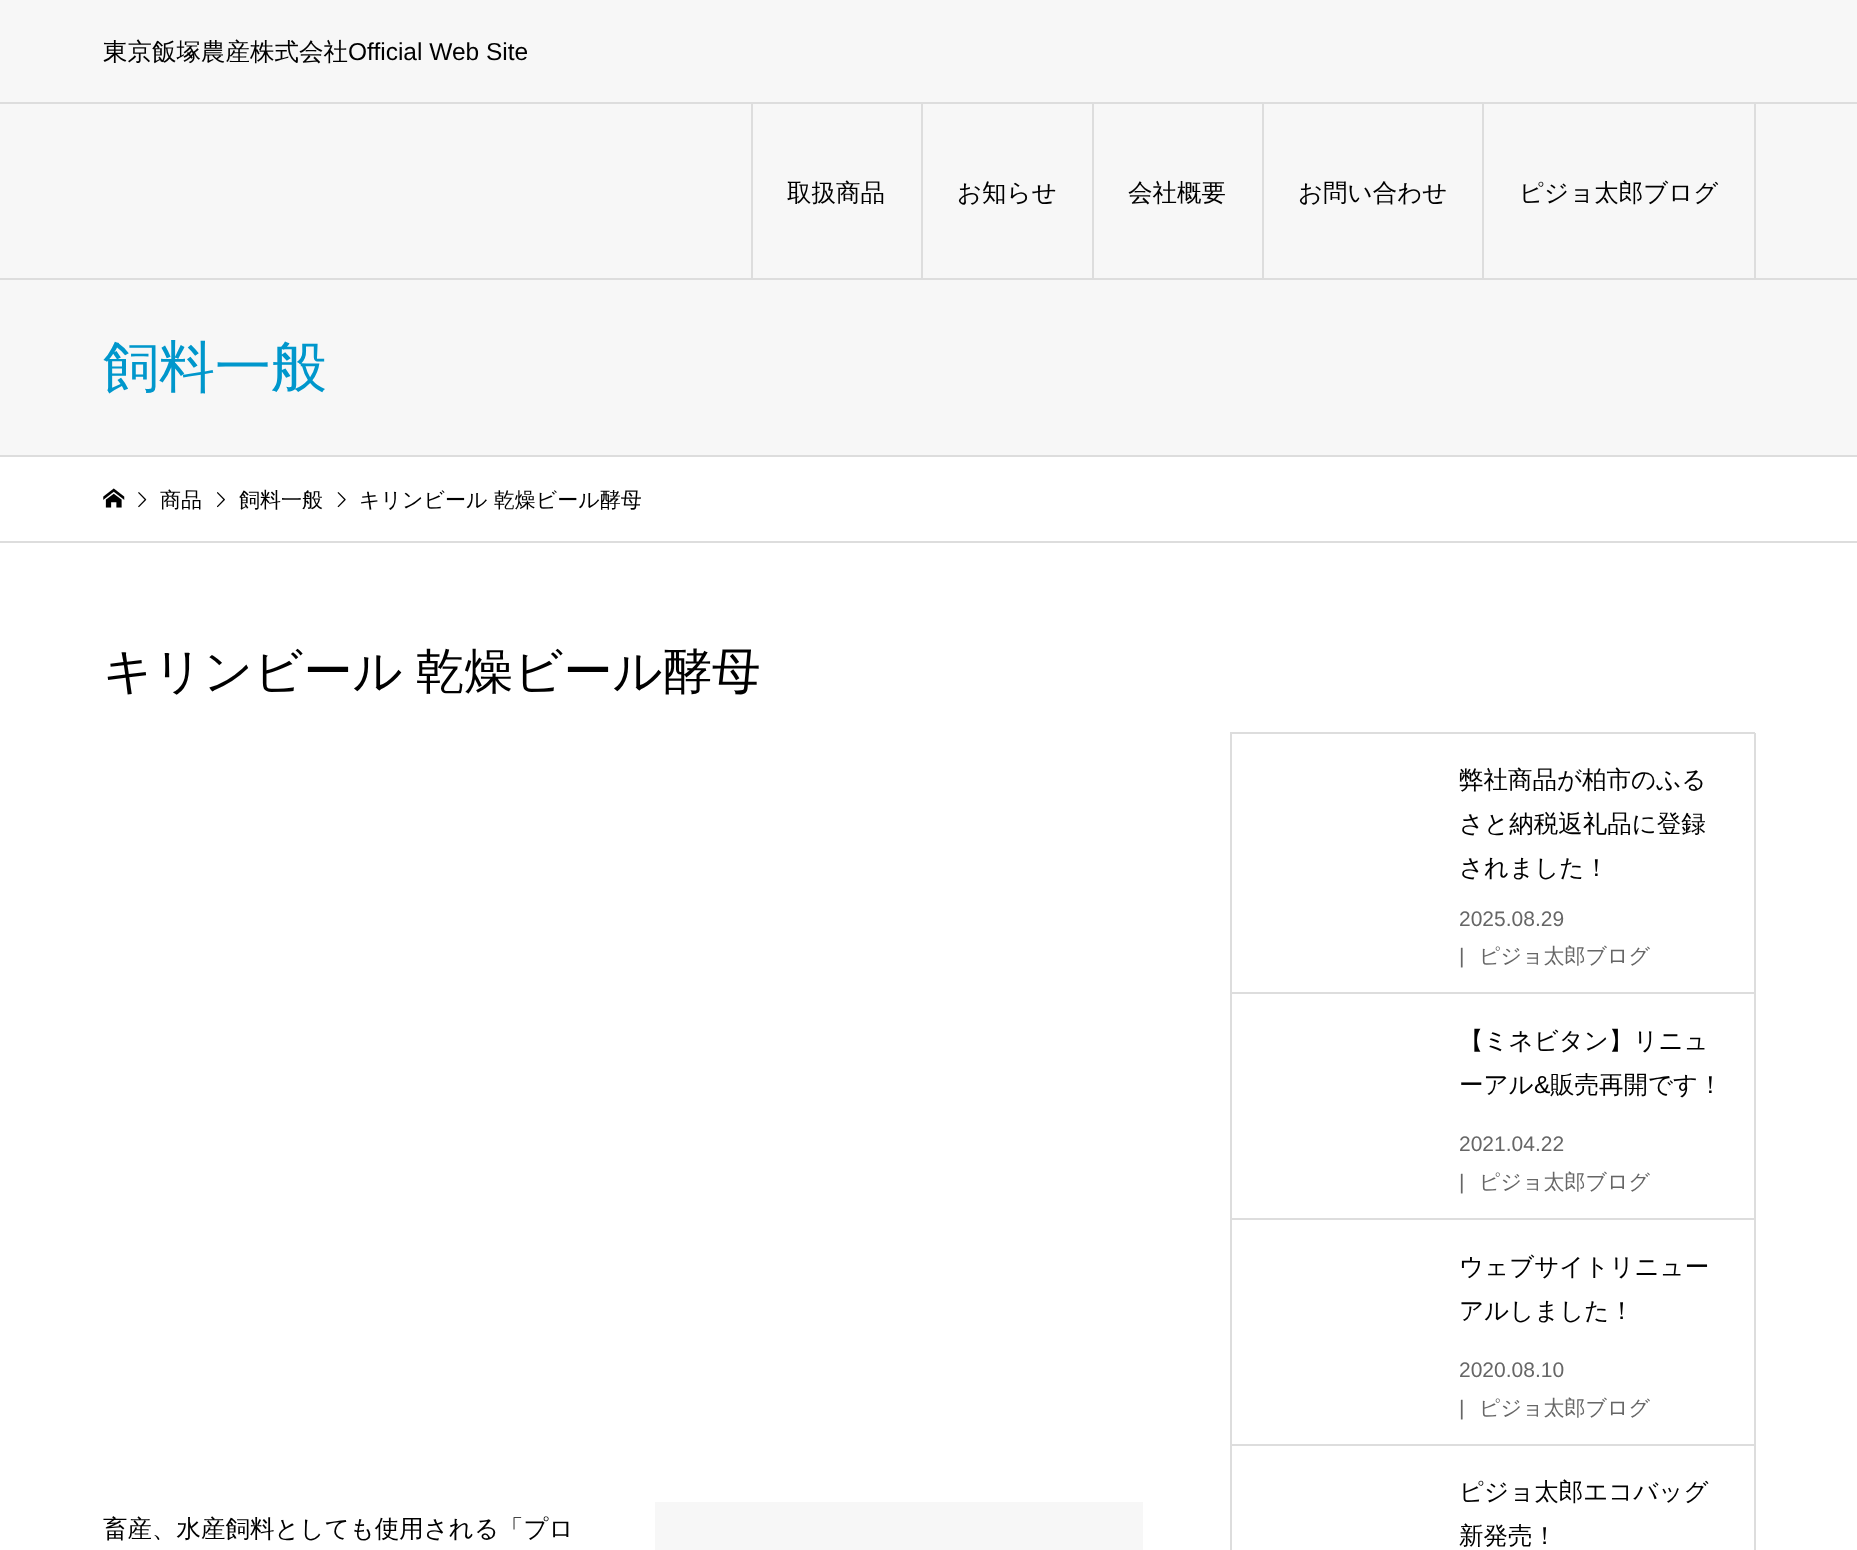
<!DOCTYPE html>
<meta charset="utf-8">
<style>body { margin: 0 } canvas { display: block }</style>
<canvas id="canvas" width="1857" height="1550"></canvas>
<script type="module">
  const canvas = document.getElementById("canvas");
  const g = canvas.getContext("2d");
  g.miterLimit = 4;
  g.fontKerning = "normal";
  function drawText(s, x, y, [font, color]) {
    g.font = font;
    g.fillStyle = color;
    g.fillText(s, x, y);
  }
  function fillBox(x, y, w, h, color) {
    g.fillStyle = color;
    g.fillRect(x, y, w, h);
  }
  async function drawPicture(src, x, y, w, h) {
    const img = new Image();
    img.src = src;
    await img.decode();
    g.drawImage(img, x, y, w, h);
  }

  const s1 = ["500 24.5px WenQuanYi Zen Hei", "#000000"];
  const s2 = ["24.5px Liberation Sans", "#000000"];
  const s3 = ["500 56px WenQuanYi Zen Hei", "#0097CC"];
  const s4 = ["500 21px WenQuanYi Zen Hei", "#000000"];
  const s5 = ["500 49px WenQuanYi Zen Hei", "#000000"];
  const s6 = ["21px Liberation Sans", "#666666"];
  const s7 = ["500 21px WenQuanYi Zen Hei", "#666666"];

  fillBox(0, 0, 1857, 1550, "#FFFFFF");
  fillBox(0, 0, 1857, 278, "#F7F7F7");
  fillBox(0, 102, 1857, 2, "#DDDDDD");
  drawText("東京飯塚農産株式会社", 103, 60, s1);
  drawText("Official Web Site", 348, 60, s2);
  fillBox(0, 278, 1857, 2, "#DDDDDD");
  fillBox(751, 103, 2, 175, "#DDDDDD");
  fillBox(921, 103, 2, 177, "#DDDDDD");
  drawText("取扱商品", 787, 201, s1);
  fillBox(1092, 103, 2, 177, "#DDDDDD");
  drawText("お知らせ", 957, 201, s1);
  fillBox(1262, 103, 2, 177, "#DDDDDD");
  drawText("会社概要", 1128, 201, s1);
  fillBox(1482, 103, 2, 177, "#DDDDDD");
  drawText("お問い合わせ", 1298, 201, s1);
  fillBox(1754, 103, 2, 177, "#DDDDDD");
  drawText("ピジョ太郎ブログ", 1519, 201, s1);
  fillBox(0, 280, 1857, 175, "#F7F7F7");
  fillBox(0, 455, 1857, 2, "#DDDDDD");
  drawText("飼料一般", 103, 386, s3);
  fillBox(0, 541, 1857, 2, "#DDDDDD");
  await drawPicture("pic1.png", 103, 488, 22, 20);
  await drawPicture("pic2.png", 138, 492, 9, 16);
  drawText("商品", 160, 507, s4);
  await drawPicture("pic3.png", 217, 492, 8, 16);
  drawText("飼料一般", 239, 507, s4);
  await drawPicture("pic4.png", 337, 492, 9, 16);
  drawText("キリンビール 乾燥ビール酵母", 359, 507, s4);
  g.wordSpacing = "-2px";
  drawText("キリンビール 乾燥ビール酵母", 103, 688, s5);
  g.wordSpacing = "0px";
  drawText("畜産、水産飼料としても使用される「プロ", 103, 1537, s1);
  fillBox(655, 1502, 488, 48, "#F7F7F7");
  fillBox(1230, 732, 525, 2, "#DDDDDD");
  fillBox(1754, 733, 2, 817, "#DDDDDD");
  fillBox(1230, 992, 525, 2, "#DDDDDD");
  fillBox(1230, 733, 2, 261, "#DDDDDD");
  drawText("弊社商品が柏市のふる", 1459, 788, s1);
  drawText("さと納税返礼品に登録", 1459, 832, s1);
  drawText("されました！", 1459, 876, s1);
  drawText("2025.08.29", 1459, 926, s6);
  drawText("|", 1459, 963, s6);
  drawText("ピジョ太郎ブログ", 1479, 963, s7);
  fillBox(1230, 1218, 525, 2, "#DDDDDD");
  fillBox(1230, 994, 2, 226, "#DDDDDD");
  drawText("【ミネビタン】リニュ", 1459, 1049, s1);
  drawText("ーアル", 1459, 1093, s1);
  drawText("&", 1534, 1093, s2);
  drawText("販売再開です！", 1550, 1093, s1);
  drawText("2021.04.22", 1459, 1151, s6);
  drawText("|", 1459, 1189, s6);
  drawText("ピジョ太郎ブログ", 1479, 1189, s7);
  fillBox(1230, 1444, 525, 2, "#DDDDDD");
  fillBox(1230, 1220, 2, 330, "#DDDDDD");
  drawText("ウェブサイトリニュー", 1459, 1275, s1);
  drawText("アルしました！", 1459, 1319, s1);
  drawText("2020.08.10", 1459, 1377, s6);
  drawText("|", 1459, 1415, s6);
  drawText("ピジョ太郎ブログ", 1479, 1415, s7);
  drawText("ピジョ太郎エコバッグ", 1459, 1500, s1);
  drawText("新発売！", 1459, 1544, s1);
</script>
